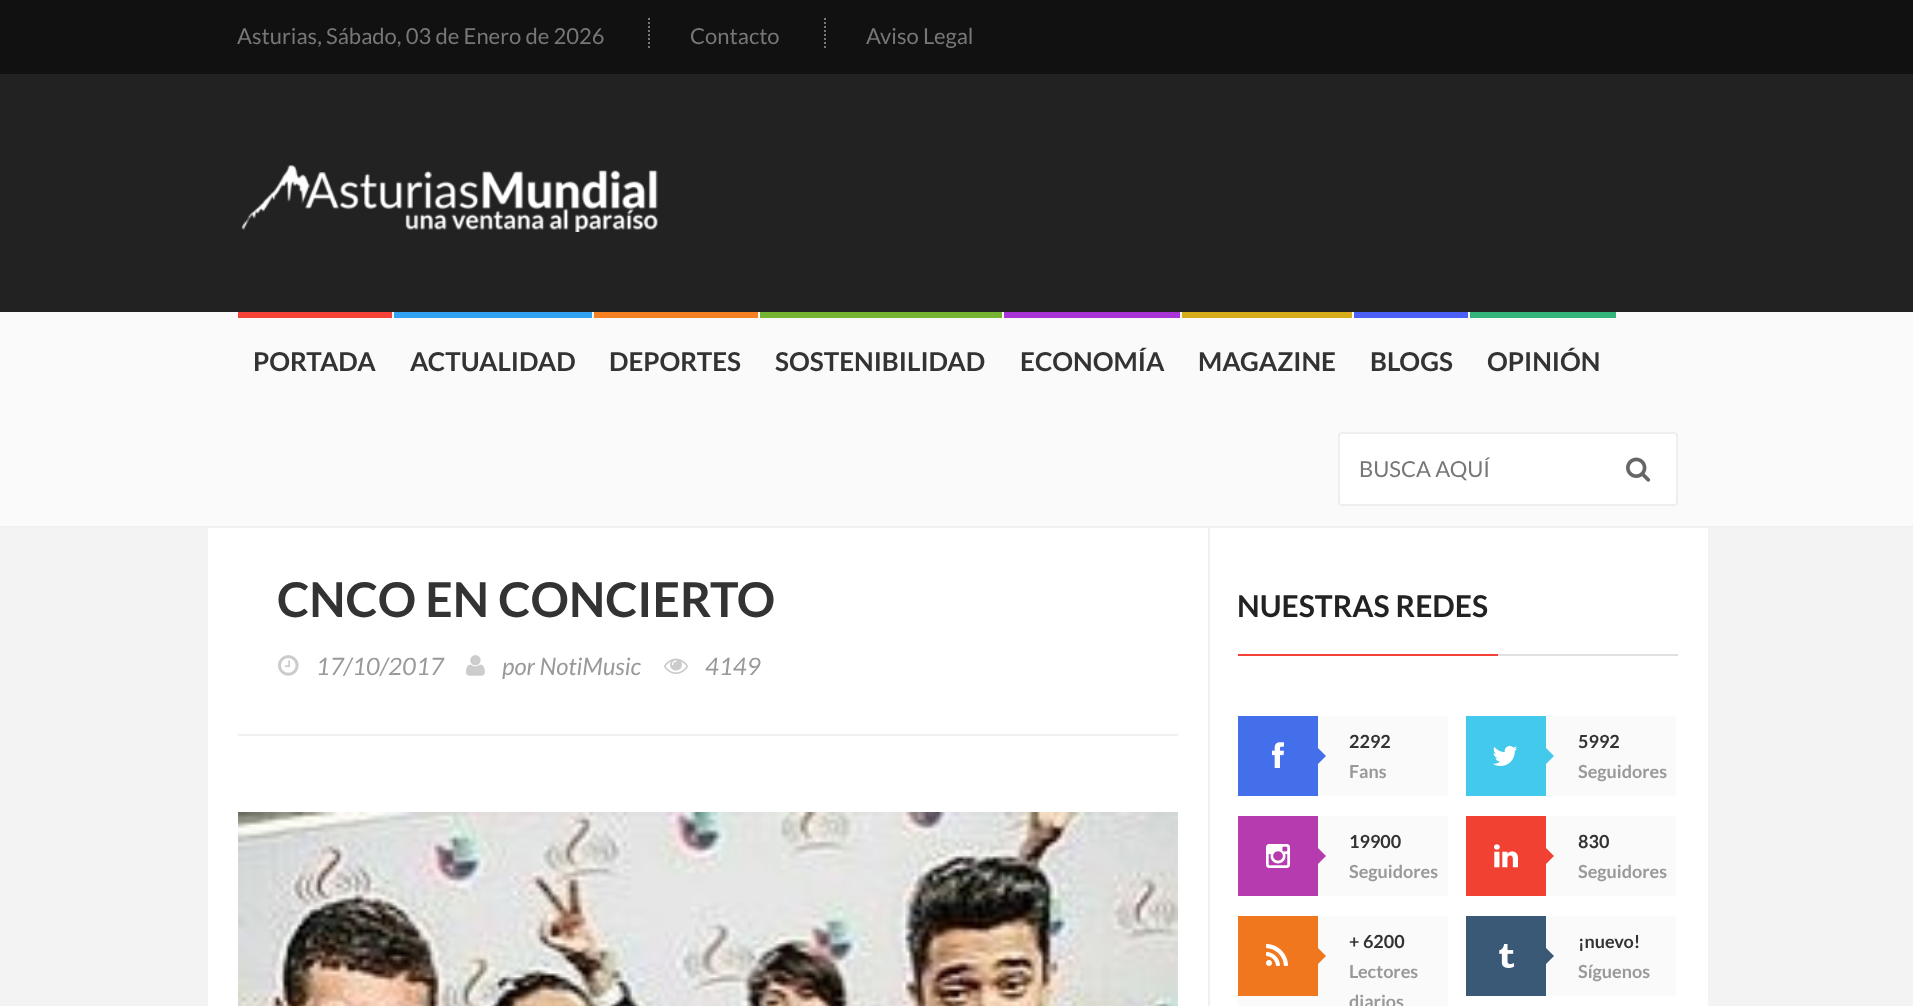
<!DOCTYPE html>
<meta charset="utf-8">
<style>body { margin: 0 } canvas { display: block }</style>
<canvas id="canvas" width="1913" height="1006"></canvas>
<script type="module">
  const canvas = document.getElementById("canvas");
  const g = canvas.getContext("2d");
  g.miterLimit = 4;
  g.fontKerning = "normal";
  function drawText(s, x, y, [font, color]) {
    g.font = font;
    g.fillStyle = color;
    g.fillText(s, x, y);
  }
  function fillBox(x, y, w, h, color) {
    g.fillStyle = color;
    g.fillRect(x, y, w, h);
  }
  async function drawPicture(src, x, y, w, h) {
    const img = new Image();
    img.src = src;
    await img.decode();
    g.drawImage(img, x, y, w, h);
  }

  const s1 = ["22px Lato", "#777777"];
  const s2 = ["bold 26px Lato", "#333333"];
  const s3 = ["bold 48px Lato", "#333333"];
  const s4 = ["italic 24px Lato", "#999999"];
  const s5 = ["bold 30px Lato", "#222222"];
  const s6 = ["bold 18px Lato", "#333333"];
  const s7 = ["bold 18px Lato", "#999999"];

  fillBox(0, 0, 1913, 1006, "#F3F3F3");
  fillBox(0, 312, 1913, 214, "#FAFAFA");
  fillBox(0, 0, 1913, 74, "#111111");
  drawText("Asturias, Sábado, 03 de Enero de 2026", 237, 44, s1);
  g.beginPath();
  g.moveTo(649, 18);
  g.lineTo(649, 50);
  g.strokeStyle = "#777777";
  g.lineWidth = 2;
  g.setLineDash([2, 2]);
  g.stroke();
  drawText("Contacto", 690, 44, s1);
  g.beginPath();
  g.moveTo(825, 18);
  g.lineTo(825, 50);
  g.stroke();
  drawText("Aviso Legal", 866, 44, s1);
  fillBox(0, 74, 1913, 238, "#222222");
  await drawPicture("pic1.png", 241, 165, 417, 67);
  fillBox(0, 526, 1913, 2, "#F0F0F0");
  fillBox(238, 312, 154, 6, "#F44336");
  drawText("PORTADA", 253, 371, s2);
  fillBox(394, 312, 198, 6, "#33A3F1");
  drawText("ACTUALIDAD", 410, 371, s2);
  fillBox(594, 312, 164, 6, "#F58021");
  drawText("DEPORTES", 609, 371, s2);
  fillBox(760, 312, 242, 6, "#74B430");
  drawText("SOSTENIBILIDAD", 775, 371, s2);
  fillBox(1004, 312, 176, 6, "#AA35D6");
  drawText("ECONOMÍA", 1020, 371, s2);
  fillBox(1182, 312, 170, 6, "#D6AC1B");
  drawText("MAGAZINE", 1198, 371, s2);
  fillBox(1354, 312, 114, 6, "#4C60F6");
  drawText("BLOGS", 1370, 371, s2);
  fillBox(1470, 312, 146, 6, "#32B47B");
  drawText("OPINIÓN", 1487, 371, s2);
  g.fillStyle = "#FFFFFF";
  g.beginPath();
  g.roundRect(1339, 433, 338, 72, 3);
  g.fill();
  g.strokeStyle = "#EEEEEE";
  g.setLineDash([]);
  g.stroke();
  drawText("BUSCA AQUÍ", 1359, 477, s1);
  await drawPicture("pic2.png", 1626, 457, 25, 25);
  fillBox(208, 528, 1500, 478, "#FFFFFF");
  fillBox(238, 734, 940, 2, "#F0F0F0");
  drawText("CNCO EN CONCIERTO", 277, 617, s3);
  await drawPicture("pic3.png", 278, 655, 21, 21);
  drawText("17/10/2017", 316, 675, s4);
  await drawPicture("pic4.png", 466, 655, 19, 21);
  drawText("por NotiMusic", 502, 675, s4);
  await drawPicture("pic5.png", 664, 658, 24, 16);
  drawText("4149", 705, 675, s4);
  await drawPicture("pic6.png", 238, 812, 940, 194);
  fillBox(1208, 528, 2, 478, "#F0F0F0");
  fillBox(1498, 654, 180, 2, "#E1E1E1");
  fillBox(1238, 654, 260, 2, "#F44336");
  drawText("NUESTRAS REDES", 1237, 617, s5);
  fillBox(1318, 716, 130, 80, "#FAFAFA");
  fillBox(1238, 716, 80, 80, "#436FEB");
  await drawPicture("pic7.png", 1272, 742, 12, 26);
  g.beginPath();
  g.moveTo(1318, 764);
  g.lineTo(1318, 748);
  g.lineTo(1326, 756);
  g.closePath();
  g.fill();
  drawText("2292", 1349, 748, s6);
  drawText("Fans", 1349, 778, s7);
  fillBox(1546, 716, 130, 80, "#FAFAFA");
  fillBox(1466, 716, 80, 80, "#43C9EB");
  await drawPicture("pic8.png", 1492, 746, 26, 20);
  g.beginPath();
  g.moveTo(1546, 764);
  g.lineTo(1546, 748);
  g.lineTo(1554, 756);
  g.closePath();
  g.fill();
  drawText("5992", 1578, 748, s6);
  drawText("Seguidores", 1578, 778, s7);
  fillBox(1318, 816, 130, 80, "#FAFAFA");
  fillBox(1238, 816, 80, 80, "#B53BAF");
  await drawPicture("pic9.png", 1266, 844, 24, 24);
  g.beginPath();
  g.moveTo(1318, 864);
  g.lineTo(1318, 848);
  g.lineTo(1326, 856);
  g.closePath();
  g.fill();
  drawText("19900", 1349, 848, s6);
  drawText("Seguidores", 1349, 878, s7);
  fillBox(1546, 816, 130, 80, "#FAFAFA");
  fillBox(1466, 816, 80, 80, "#F14133");
  await drawPicture("pic10.png", 1494, 844, 24, 24);
  g.beginPath();
  g.moveTo(1546, 864);
  g.lineTo(1546, 848);
  g.lineTo(1554, 856);
  g.closePath();
  g.fill();
  drawText("830", 1578, 848, s6);
  drawText("Seguidores", 1578, 878, s7);
  fillBox(1238, 916, 210, 90, "#FAFAFA");
  fillBox(1238, 916, 80, 80, "#F0771E");
  await drawPicture("pic11.png", 1266, 944, 22, 22);
  g.beginPath();
  g.moveTo(1318, 964);
  g.lineTo(1318, 948);
  g.lineTo(1326, 956);
  g.closePath();
  g.fill();
  drawText("+ 6200", 1349, 948, s6);
  drawText("Lectores", 1349, 978, s7);
  drawText("diarios", 1349, 1008, s7);
  fillBox(1546, 916, 130, 80, "#FAFAFA");
  fillBox(1466, 916, 80, 80, "#395976");
  await drawPicture("pic12.png", 1499, 944, 15, 24);
  g.beginPath();
  g.moveTo(1546, 964);
  g.lineTo(1546, 948);
  g.lineTo(1554, 956);
  g.closePath();
  g.fill();
  drawText("¡nuevo!", 1578, 948, s6);
  drawText("Síguenos", 1578, 978, s7);
</script>
